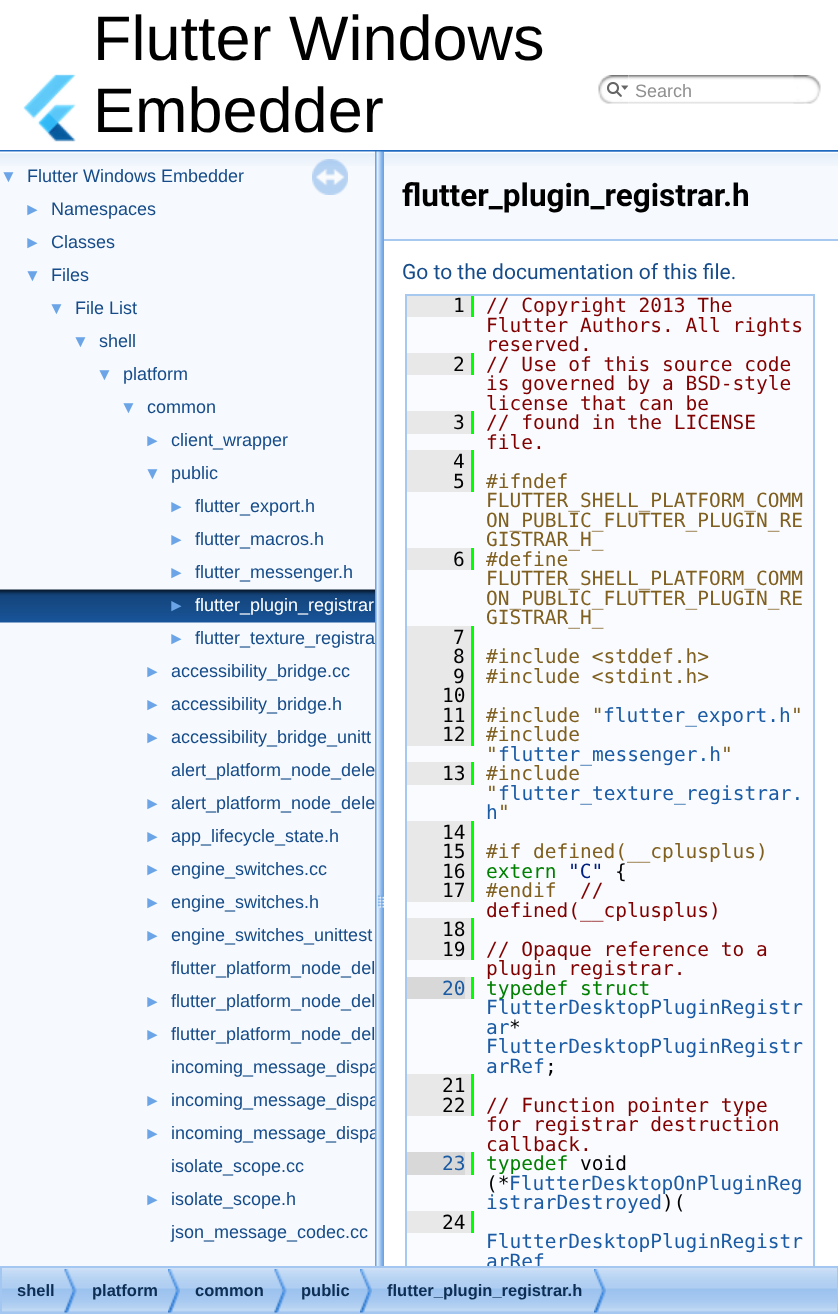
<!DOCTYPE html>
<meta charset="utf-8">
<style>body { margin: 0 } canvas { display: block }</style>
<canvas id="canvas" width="838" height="1314"></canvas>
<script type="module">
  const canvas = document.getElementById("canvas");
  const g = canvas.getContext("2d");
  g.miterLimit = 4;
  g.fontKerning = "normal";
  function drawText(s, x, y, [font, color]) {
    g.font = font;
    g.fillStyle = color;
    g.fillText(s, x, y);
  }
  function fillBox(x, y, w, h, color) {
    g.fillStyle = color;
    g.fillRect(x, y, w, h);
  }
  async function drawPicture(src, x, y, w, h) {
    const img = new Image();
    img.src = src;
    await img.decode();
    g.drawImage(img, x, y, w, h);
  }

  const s1 = ["63px Liberation Sans", "#000000"];
  const s2 = ["18px Liberation Sans", "#909090"];
  const s3 = ["17px Liberation Sans", "#6CA5E7"];
  const s4 = ["18px Liberation Sans", "#164C89"];
  const s5 = ["18px Liberation Sans", "#FFFFFF"];
  const s6 = ["bold 31.5px Roboto", "#000000"];
  const s7 = ["21px Roboto", "#164C89"];
  const s8 = ["19.5px DejaVu Sans Mono", "#000000"];
  const s9 = ["19.5px DejaVu Sans Mono", "#800000"];
  const s10 = ["19.5px DejaVu Sans Mono", "#806020"];
  const s11 = ["19.5px DejaVu Sans Mono", "#1B5BA4"];
  const s12 = ["19.5px DejaVu Sans Mono", "#008000"];
  const s13 = ["19.5px DejaVu Sans Mono", "#002080"];
  const s14 = ["bold 16.5px Liberation Sans", "#0D2D52"];

  fillBox(0, 0, 838, 1314, "#FFFFFF");
  fillBox(0, 150, 838, 2, "#1F6AC0");
  await drawPicture("pic1.png", 23, 74, 53, 68);
  drawText("Flutter Windows", 93, 60, s1);
  drawText("Embedder", 93, 132, s1);
  await drawPicture("pic2.png", 598, 75, 31, 29);
  await drawPicture("pic3.png", 607, 82, 22, 15);
  await drawPicture("pic4.png", 628, 75, 176, 29);
  drawText("Search", 635, 97, s2);
  await drawPicture("pic5.png", 793, 75, 28, 29);
  fillBox(0, 166, 375, 1100, "#F6F9FD");
  await drawPicture("pic6.png", 0, 151, 375, 15);
  await drawPicture("pic7.png", 312, 159, 36, 36);
  drawText("▼", 0, 182, s3);
  drawText("Flutter Windows Embedder", 27, 182, s4);
  drawText("►", 24, 215, s3);
  drawText("Namespaces", 51, 215, s4);
  drawText("►", 24, 248, s3);
  drawText("Classes", 51, 248, s4);
  drawText("▼", 24, 281, s3);
  drawText("Files", 51, 281, s4);
  drawText("▼", 48, 314, s3);
  drawText("File List", 75, 314, s4);
  drawText("▼", 72, 347, s3);
  drawText("shell", 99, 347, s4);
  drawText("▼", 96, 380, s3);
  drawText("platform", 123, 380, s4);
  drawText("▼", 120, 413, s3);
  drawText("common", 147, 413, s4);
  drawText("►", 144, 446, s3);
  drawText("client_wrapper", 171, 446, s4);
  drawText("▼", 144, 479, s3);
  drawText("public", 171, 479, s4);
  drawText("►", 168, 512, s3);
  drawText("flutter_export.h", 195, 512, s4);
  drawText("►", 168, 545, s3);
  drawText("flutter_macros.h", 195, 545, s4);
  drawText("►", 168, 578, s3);
  drawText("flutter_messenger.h", 195, 578, s4);
  await drawPicture("pic8.png", 0, 589, 375, 34);
  drawText("►", 168, 611, s3);
  drawText("flutter_plugin_registrar", 195, 611, s5);
  drawText("►", 168, 644, s3);
  drawText("flutter_texture_registra", 195, 644, s4);
  drawText("►", 144, 677, s3);
  drawText("accessibility_bridge.cc", 171, 677, s4);
  drawText("►", 144, 710, s3);
  drawText("accessibility_bridge.h", 171, 710, s4);
  drawText("►", 144, 743, s3);
  drawText("accessibility_bridge_unitt", 171, 743, s4);
  drawText("alert_platform_node_dele", 171, 776, s4);
  drawText("►", 144, 809, s3);
  drawText("alert_platform_node_dele", 171, 809, s4);
  drawText("►", 144, 842, s3);
  drawText("app_lifecycle_state.h", 171, 842, s4);
  drawText("►", 144, 875, s3);
  drawText("engine_switches.cc", 171, 875, s4);
  drawText("►", 144, 908, s3);
  drawText("engine_switches.h", 171, 908, s4);
  drawText("►", 144, 941, s3);
  drawText("engine_switches_unittest", 171, 941, s4);
  drawText("flutter_platform_node_del", 171, 974, s4);
  drawText("►", 144, 1007, s3);
  drawText("flutter_platform_node_del", 171, 1007, s4);
  drawText("►", 144, 1040, s3);
  drawText("flutter_platform_node_del", 171, 1040, s4);
  drawText("incoming_message_dispa", 171, 1073, s4);
  drawText("►", 144, 1106, s3);
  drawText("incoming_message_dispa", 171, 1106, s4);
  drawText("►", 144, 1139, s3);
  drawText("incoming_message_dispa", 171, 1139, s4);
  drawText("isolate_scope.cc", 171, 1172, s4);
  drawText("►", 144, 1205, s3);
  drawText("isolate_scope.h", 171, 1205, s4);
  drawText("json_message_codec.cc", 171, 1238, s4);
  await drawPicture("pic9.png", 375, 151, 9, 1115);
  fillBox(384, 166, 454, 73, "#F6F9FD");
  await drawPicture("pic10.png", 384, 151, 454, 15);
  fillBox(384, 239, 454, 2, "#A7C9F0");
  drawText("flutter_plugin_registrar.h", 402, 206, s6);
  drawText("Go to the documentation of this file.", 402, 279, s7);
  fillBox(407, 296, 406, 970, "#F9FBFE");
  g.strokeStyle = "#A7C9F0";
  g.lineWidth = 2;
  g.strokeRect(406, 295, 408, 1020);
  fillBox(407, 296, 64, 21, "#E8E8E8");
  drawText("1", 453, 312, s8);
  fillBox(471, 296, 3, 21, "#00FF00");
  drawText("// Copyright 2013 The", 486, 312, s9);
  drawText("Flutter Authors. All rights", 486, 332, s9);
  drawText("reserved.", 486, 351, s9);
  fillBox(407, 353, 64, 22, "#E8E8E8");
  drawText("2", 453, 371, s8);
  fillBox(471, 353, 3, 22, "#00FF00");
  drawText("// Use of this source code", 486, 371, s9);
  drawText("is governed by a BSD-style", 486, 390, s9);
  drawText("license that can be", 486, 410, s9);
  fillBox(407, 411, 64, 23, "#E8E8E8");
  drawText("3", 453, 429, s8);
  fillBox(471, 411, 3, 23, "#00FF00");
  drawText("// found in the LICENSE", 486, 429, s9);
  drawText("file.", 486, 449, s9);
  fillBox(407, 450, 64, 42, "#E8E8E8");
  drawText("4", 453, 468, s8);
  fillBox(471, 450, 3, 42, "#00FF00");
  drawText("5", 453, 488, s8);
  drawText("#ifndef", 486, 488, s10);
  drawText("FLUTTER_SHELL_PLATFORM_COMM", 486, 507, s10);
  drawText("ON_PUBLIC_FLUTTER_PLUGIN_RE", 486, 527, s10);
  drawText("GISTRAR_H_", 486, 546, s10);
  fillBox(407, 548, 64, 22, "#E8E8E8");
  drawText("6", 453, 566, s8);
  fillBox(471, 548, 3, 22, "#00FF00");
  drawText("#define", 486, 566, s10);
  drawText("FLUTTER_SHELL_PLATFORM_COMM", 486, 585, s10);
  drawText("ON_PUBLIC_FLUTTER_PLUGIN_RE", 486, 605, s10);
  drawText("GISTRAR_H_", 486, 624, s10);
  fillBox(407, 626, 64, 120, "#E8E8E8");
  drawText("7", 453, 644, s8);
  fillBox(471, 626, 3, 120, "#00FF00");
  drawText("8", 453, 663, s8);
  drawText("#include <stddef.h>", 486, 663, s10);
  drawText("9", 453, 683, s8);
  drawText("#include <stdint.h>", 486, 683, s10);
  drawText("10", 442, 702, s8);
  drawText("11", 442, 722, s8);
  drawText("#include \"", 486, 722, s10);
  drawText("flutter_export.h", 603, 722, s11);
  drawText("\"", 791, 722, s10);
  drawText("12", 442, 741, s8);
  drawText("#include", 486, 741, s10);
  drawText("\"", 486, 761, s10);
  drawText("flutter_messenger.h", 498, 761, s11);
  drawText("\"", 721, 761, s10);
  fillBox(407, 762, 64, 23, "#E8E8E8");
  drawText("13", 442, 780, s8);
  fillBox(471, 762, 3, 23, "#00FF00");
  drawText("#include", 486, 780, s10);
  drawText("\"", 486, 800, s10);
  drawText("flutter_texture_registrar.", 498, 800, s11);
  drawText("h", 486, 819, s11);
  drawText("\"", 498, 819, s10);
  fillBox(407, 821, 64, 81, "#E8E8E8");
  drawText("14", 442, 839, s8);
  fillBox(471, 821, 3, 81, "#00FF00");
  drawText("15", 442, 858, s8);
  drawText("#if defined(__cplusplus)", 486, 858, s10);
  drawText("16", 442, 878, s8);
  drawText("extern", 486, 878, s12);
  drawText("\"C\"", 568, 878, s13);
  drawText("{", 615, 878, s8);
  drawText("17", 442, 897, s8);
  drawText("#endif", 486, 897, s10);
  drawText("//", 580, 897, s9);
  drawText("defined(__cplusplus)", 486, 917, s9);
  fillBox(407, 918, 64, 42, "#E8E8E8");
  drawText("18", 442, 936, s8);
  fillBox(471, 918, 3, 42, "#00FF00");
  drawText("19", 442, 956, s8);
  drawText("// Opaque reference to a", 486, 956, s9);
  drawText("plugin registrar.", 486, 975, s9);
  fillBox(407, 977, 58, 22, "#D8D8D8");
  drawText("20", 442, 995, s11);
  fillBox(465, 977, 6, 22, "#E8E8E8");
  fillBox(471, 977, 3, 22, "#00FF00");
  drawText("typedef struct", 486, 995, s12);
  drawText("FlutterDesktopPluginRegistr", 486, 1014, s11);
  drawText("ar", 486, 1034, s11);
  drawText("*", 509, 1034, s8);
  drawText("FlutterDesktopPluginRegistr", 486, 1053, s11);
  drawText("arRef", 486, 1073, s11);
  drawText(";", 545, 1073, s8);
  fillBox(407, 1074, 64, 42, "#E8E8E8");
  drawText("21", 442, 1092, s8);
  fillBox(471, 1074, 3, 42, "#00FF00");
  drawText("22", 442, 1112, s8);
  drawText("// Function pointer type", 486, 1112, s9);
  drawText("for registrar destruction", 486, 1131, s9);
  drawText("callback.", 486, 1151, s9);
  fillBox(407, 1152, 58, 23, "#D8D8D8");
  drawText("23", 442, 1170, s11);
  fillBox(465, 1152, 6, 23, "#E8E8E8");
  fillBox(471, 1152, 3, 23, "#00FF00");
  drawText("typedef", 486, 1170, s12);
  drawText("void", 580, 1170, s8);
  drawText("(*", 486, 1190, s8);
  drawText("FlutterDesktopOnPluginReg", 509, 1190, s11);
  drawText("istrarDestroyed", 486, 1209, s11);
  drawText(")(", 662, 1209, s8);
  fillBox(407, 1211, 64, 22, "#E8E8E8");
  drawText("24", 442, 1229, s8);
  fillBox(471, 1211, 3, 22, "#00FF00");
  drawText("FlutterDesktopPluginRegistr", 486, 1248, s11);
  drawText("arRef", 486, 1268, s11);
  await drawPicture("pic11.png", 2, 1268, 835, 44);
  g.strokeStyle = "#A3C7F0";
  g.strokeRect(1, 1267, 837, 46);
  await drawPicture("pic12.png", 64, 1269, 13, 44);
  drawText("shell", 17, 1296, s14);
  await drawPicture("pic13.png", 168, 1269, 12, 44);
  drawText("platform", 92, 1296, s14);
  await drawPicture("pic12.png", 274, 1269, 13, 44);
  drawText("common", 195, 1296, s14);
  await drawPicture("pic14.png", 360, 1269, 12, 44);
  drawText("public", 301, 1296, s14);
  await drawPicture("pic14.png", 594, 1269, 12, 44);
  drawText("flutter_plugin_registrar.h", 387, 1296, s14);
</script>
